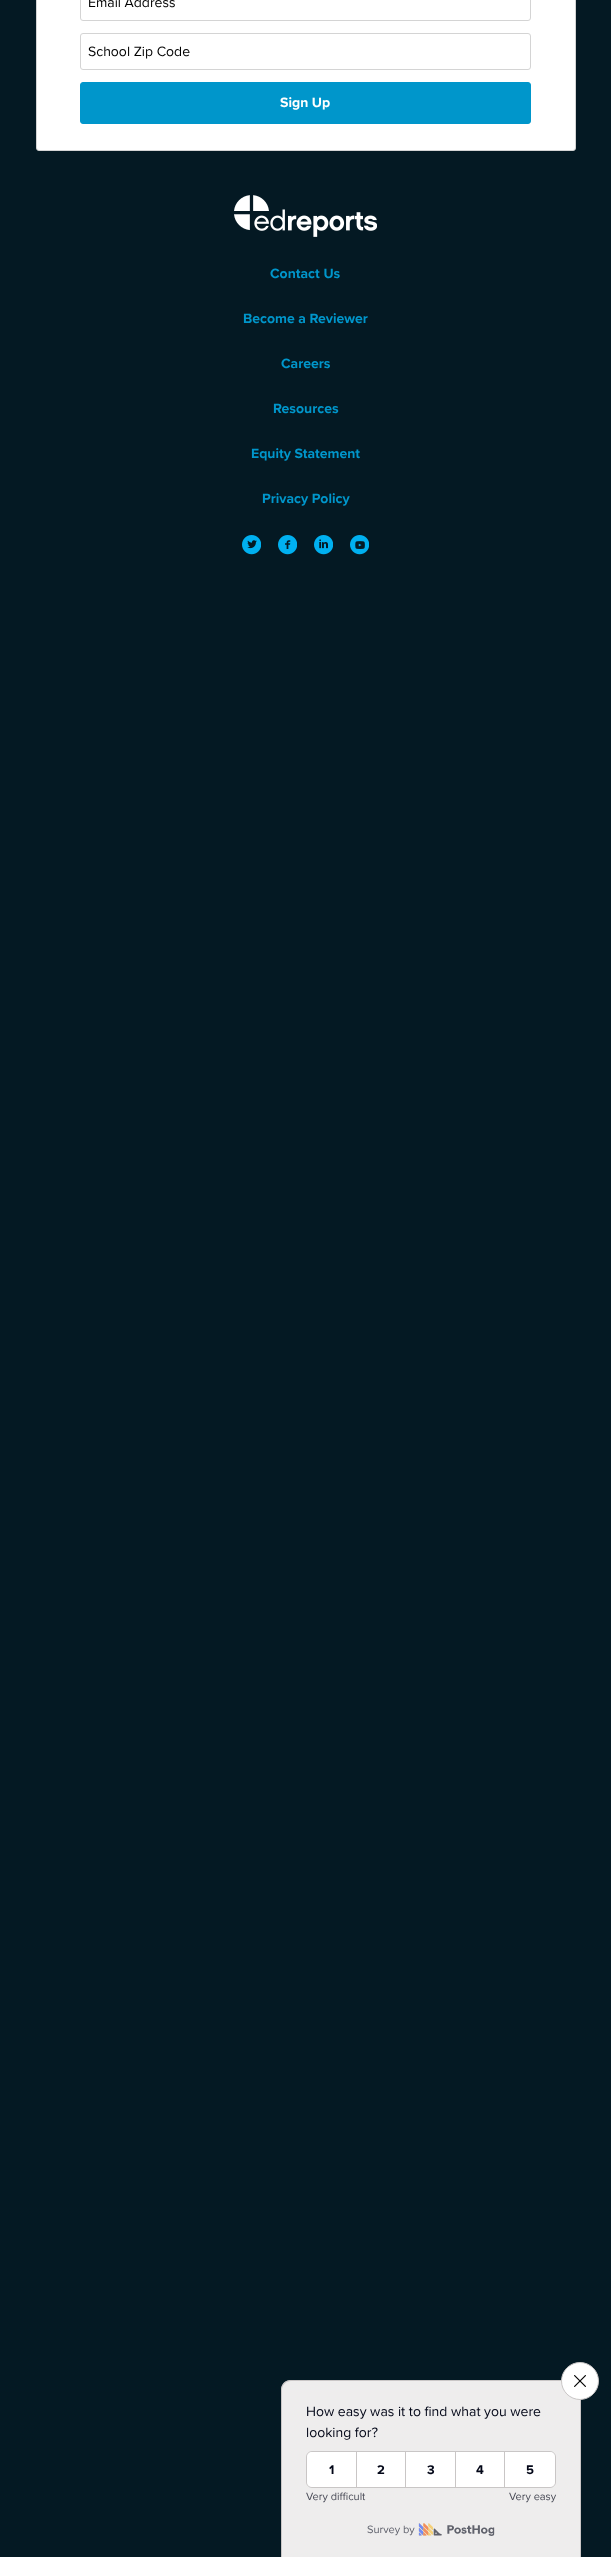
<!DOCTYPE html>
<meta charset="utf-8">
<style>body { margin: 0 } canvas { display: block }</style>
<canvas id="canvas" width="611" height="2557"></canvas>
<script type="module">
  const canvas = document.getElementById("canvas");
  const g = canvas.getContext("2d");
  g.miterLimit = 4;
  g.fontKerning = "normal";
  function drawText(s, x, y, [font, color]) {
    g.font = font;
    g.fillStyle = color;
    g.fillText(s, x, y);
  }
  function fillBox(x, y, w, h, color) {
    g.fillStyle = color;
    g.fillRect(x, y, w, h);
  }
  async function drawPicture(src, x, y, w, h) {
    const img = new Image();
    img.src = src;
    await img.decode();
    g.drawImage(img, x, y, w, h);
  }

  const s1 = ["14px Proxima Nova", "#000000"];
  const s2 = ["bold 14px Proxima Nova", "#FFFFFF"];
  const s3 = ["bold 14px Proxima Nova", "#0096CB"];
  const s4 = ["14px Proxima Nova", "#020617"];
  const s5 = ["bold 13px Proxima Nova", "#020617"];
  const s6 = ["11px Proxima Nova", "#494B57"];
  const s7 = ["11px Proxima Nova", "#60626D"];

  fillBox(0, 0, 611, 2557, "#041923");
  g.fillStyle = "#FFFFFF";
  g.beginPath();
  g.roundRect(36.5, -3.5, 539, 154, 2.5);
  g.fill();
  g.strokeStyle = "#D4D4D4";
  g.stroke();
  g.beginPath();
  g.roundRect(80.5, -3.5, 450, 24, 2.5);
  g.stroke();
  drawText("Email Address", 88, 7, s1);
  g.beginPath();
  g.roundRect(80.5, 33.5, 450, 36, 2.5);
  g.stroke();
  drawText("School Zip Code", 88, 56, s1);
  g.fillStyle = "#0096CB";
  g.beginPath();
  g.roundRect(80.5, 82.5, 450, 41, 2.5);
  g.fill();
  g.strokeStyle = "#0096CB";
  g.stroke();
  drawText("Sign Up", 280, 107, s2);
  await drawPicture("pic1.png", 234, 195, 143, 42);
  drawText("Contact Us", 270, 278, s3);
  drawText("Become a Reviewer", 243, 323, s3);
  drawText("Careers", 281, 368, s3);
  drawText("Resources", 273, 413, s3);
  drawText("Equity Statement", 251, 458, s3);
  drawText("Privacy Policy", 262, 503, s3);
  await drawPicture("pic2.png", 242, 535, 19, 20);
  await drawPicture("pic3.png", 278, 535, 19, 20);
  await drawPicture("pic4.png", 314, 535, 19, 20);
  await drawPicture("pic5.png", 350, 535, 19, 20);
  g.fillStyle = "#EEEDED";
  g.beginPath();
  g.roundRect(281, 2380, 300, 177, [10, 10, 0, 0]);
  g.fill();
  g.fillStyle = "#C9C6C6";
  g.beginPath();
  g.moveTo(291, 2380);
  g.lineTo(571, 2380);
  g.bezierCurveTo(577, 2380, 581, 2384, 581, 2390);
  g.lineTo(581, 2557);
  g.lineTo(281, 2557);
  g.lineTo(281, 2390);
  g.bezierCurveTo(281, 2384, 285, 2380, 291, 2380);
  g.closePath();
  g.moveTo(291, 2381);
  g.lineTo(571, 2381);
  g.bezierCurveTo(576, 2381, 580, 2385, 580, 2390);
  g.lineTo(580, 2557);
  g.lineTo(282, 2557);
  g.lineTo(282, 2390);
  g.bezierCurveTo(282, 2385, 286, 2381, 291, 2381);
  g.closePath();
  g.fill("evenodd");
  g.fillStyle = "#FFFFFF";
  g.beginPath();
  g.arc(580, 2381, 18.5, 0, Math.PI * 2);
  g.fill();
  g.strokeStyle = "#C9C6C6";
  g.stroke();
  await drawPicture("pic6.png", 574, 2375, 12, 12);
  drawText("How easy was it to find what you were", 306, 2416, s4);
  drawText("looking for?", 306, 2437, s4);
  g.beginPath();
  g.roundRect(306.5, 2451.5, 249, 36, 5.5);
  g.stroke();
  g.fillStyle = "#FFFFFF";
  g.beginPath();
  g.roundRect(307, 2452, 50, 35, [5, 0, 0, 5]);
  g.fill();
  fillBox(356, 2452, 1, 35, "#C9C6C6");
  drawText("1", 329, 2474, s5);
  fillBox(357, 2452, 48, 35, "#FFFFFF");
  fillBox(405, 2452, 1, 35, "#C9C6C6");
  drawText("2", 377, 2474, s5);
  fillBox(406, 2452, 49, 35, "#FFFFFF");
  fillBox(455, 2452, 1, 35, "#C9C6C6");
  drawText("3", 427, 2474, s5);
  fillBox(456, 2452, 48, 35, "#FFFFFF");
  fillBox(504, 2452, 1, 35, "#C9C6C6");
  drawText("4", 476, 2474, s5);
  g.fillStyle = "#FFFFFF";
  g.beginPath();
  g.roundRect(505, 2452, 50, 35, [0, 5, 5, 0]);
  g.fill();
  drawText("5", 526, 2474, s5);
  drawText("Very difficult", 306, 2500, s6);
  drawText("Very easy", 509, 2500, s6);
  drawText("Survey by", 367, 2533, s7);
  await drawPicture("pic7.png", 418, 2523, 77, 13);
</script>
